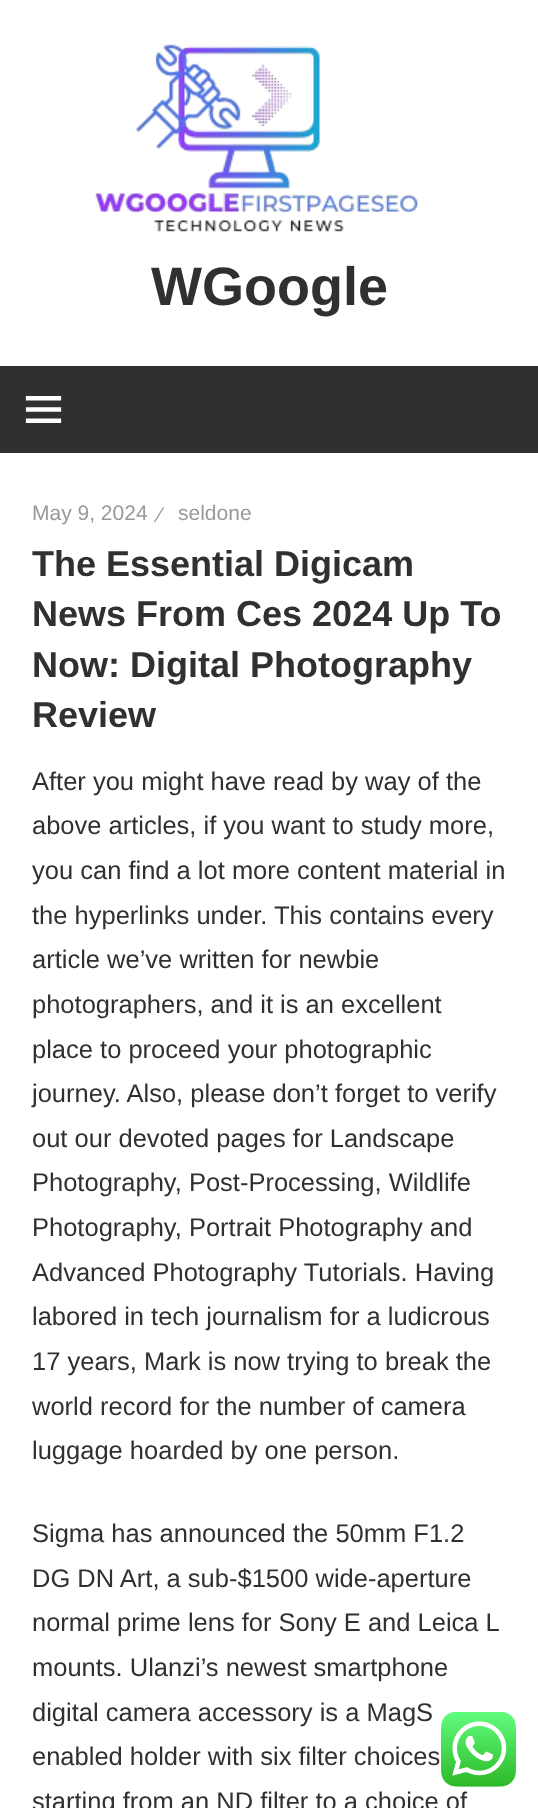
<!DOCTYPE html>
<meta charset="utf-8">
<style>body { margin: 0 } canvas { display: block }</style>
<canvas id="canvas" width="538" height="1808"></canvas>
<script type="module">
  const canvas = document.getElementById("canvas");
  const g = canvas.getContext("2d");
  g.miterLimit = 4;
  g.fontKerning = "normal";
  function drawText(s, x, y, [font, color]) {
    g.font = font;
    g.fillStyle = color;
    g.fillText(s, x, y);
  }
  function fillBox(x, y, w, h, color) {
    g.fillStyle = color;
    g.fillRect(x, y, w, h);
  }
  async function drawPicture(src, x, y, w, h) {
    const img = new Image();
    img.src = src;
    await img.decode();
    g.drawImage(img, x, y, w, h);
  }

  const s1 = ["bold 54px Liberation Sans", "#303030"];
  const s2 = ["21px Liberation Sans", "#999999"];
  const s3 = ["bold 36px Liberation Sans", "#303030"];
  const s4 = ["25.5px Liberation Sans", "#303030"];

  fillBox(0, 0, 538, 1808, "#FFFFFF");
  await drawPicture("pic1.png", 94, 44, 325, 188);
  drawText("WGoogle", 151, 305, s1);
  fillBox(0, 366, 538, 87, "#303030");
  await drawPicture("pic2.png", 25, 396, 37, 27);
  drawText("May 9, 2024", 32, 520, s2);
  drawText("⁄", 158, 522, s2);
  drawText("seldone", 178, 520, s2);
  drawText("The Essential Digicam", 32, 576, s3);
  drawText("News From Ces 2024 Up To", 32, 626, s3);
  drawText("Now: Digital Photography", 32, 677, s3);
  drawText("Review", 32, 727, s3);
  drawText("After you might have read by way of the", 32, 790, s4);
  drawText("above articles, if you want to study more,", 32, 834, s4);
  drawText("you can find a lot more content material in", 32, 879, s4);
  drawText("the hyperlinks under. This contains every", 32, 924, s4);
  drawText("article we’ve written for newbie", 32, 968, s4);
  drawText("photographers, and it is an excellent", 32, 1013, s4);
  drawText("place to proceed your photographic", 32, 1058, s4);
  drawText("journey. Also, please don’t forget to verify", 32, 1102, s4);
  drawText("out our devoted pages for Landscape", 32, 1147, s4);
  drawText("Photography, Post-Processing, Wildlife", 32, 1191, s4);
  drawText("Photography, Portrait Photography and", 32, 1236, s4);
  drawText("Advanced Photography Tutorials. Having", 32, 1281, s4);
  drawText("labored in tech journalism for a ludicrous", 32, 1325, s4);
  drawText("17 years, Mark is now trying to break the", 32, 1370, s4);
  drawText("world record for the number of camera", 32, 1415, s4);
  drawText("luggage hoarded by one person.", 32, 1459, s4);
  drawText("Sigma has announced the 50mm F1.2", 32, 1542, s4);
  drawText("DG DN Art, a sub-$1500 wide-aperture", 32, 1587, s4);
  drawText("normal prime lens for Sony E and Leica L", 32, 1631, s4);
  drawText("mounts. Ulanzi’s newest smartphone", 32, 1676, s4);
  drawText("digital camera accessory is a MagS", 32, 1721, s4);
  drawText("enabled holder with six filter choices", 32, 1765, s4);
  drawText("starting from an ND filter to a choice of", 32, 1810, s4);
  await drawPicture("pic3.png", 441, 1712, 75, 75);
</script>
